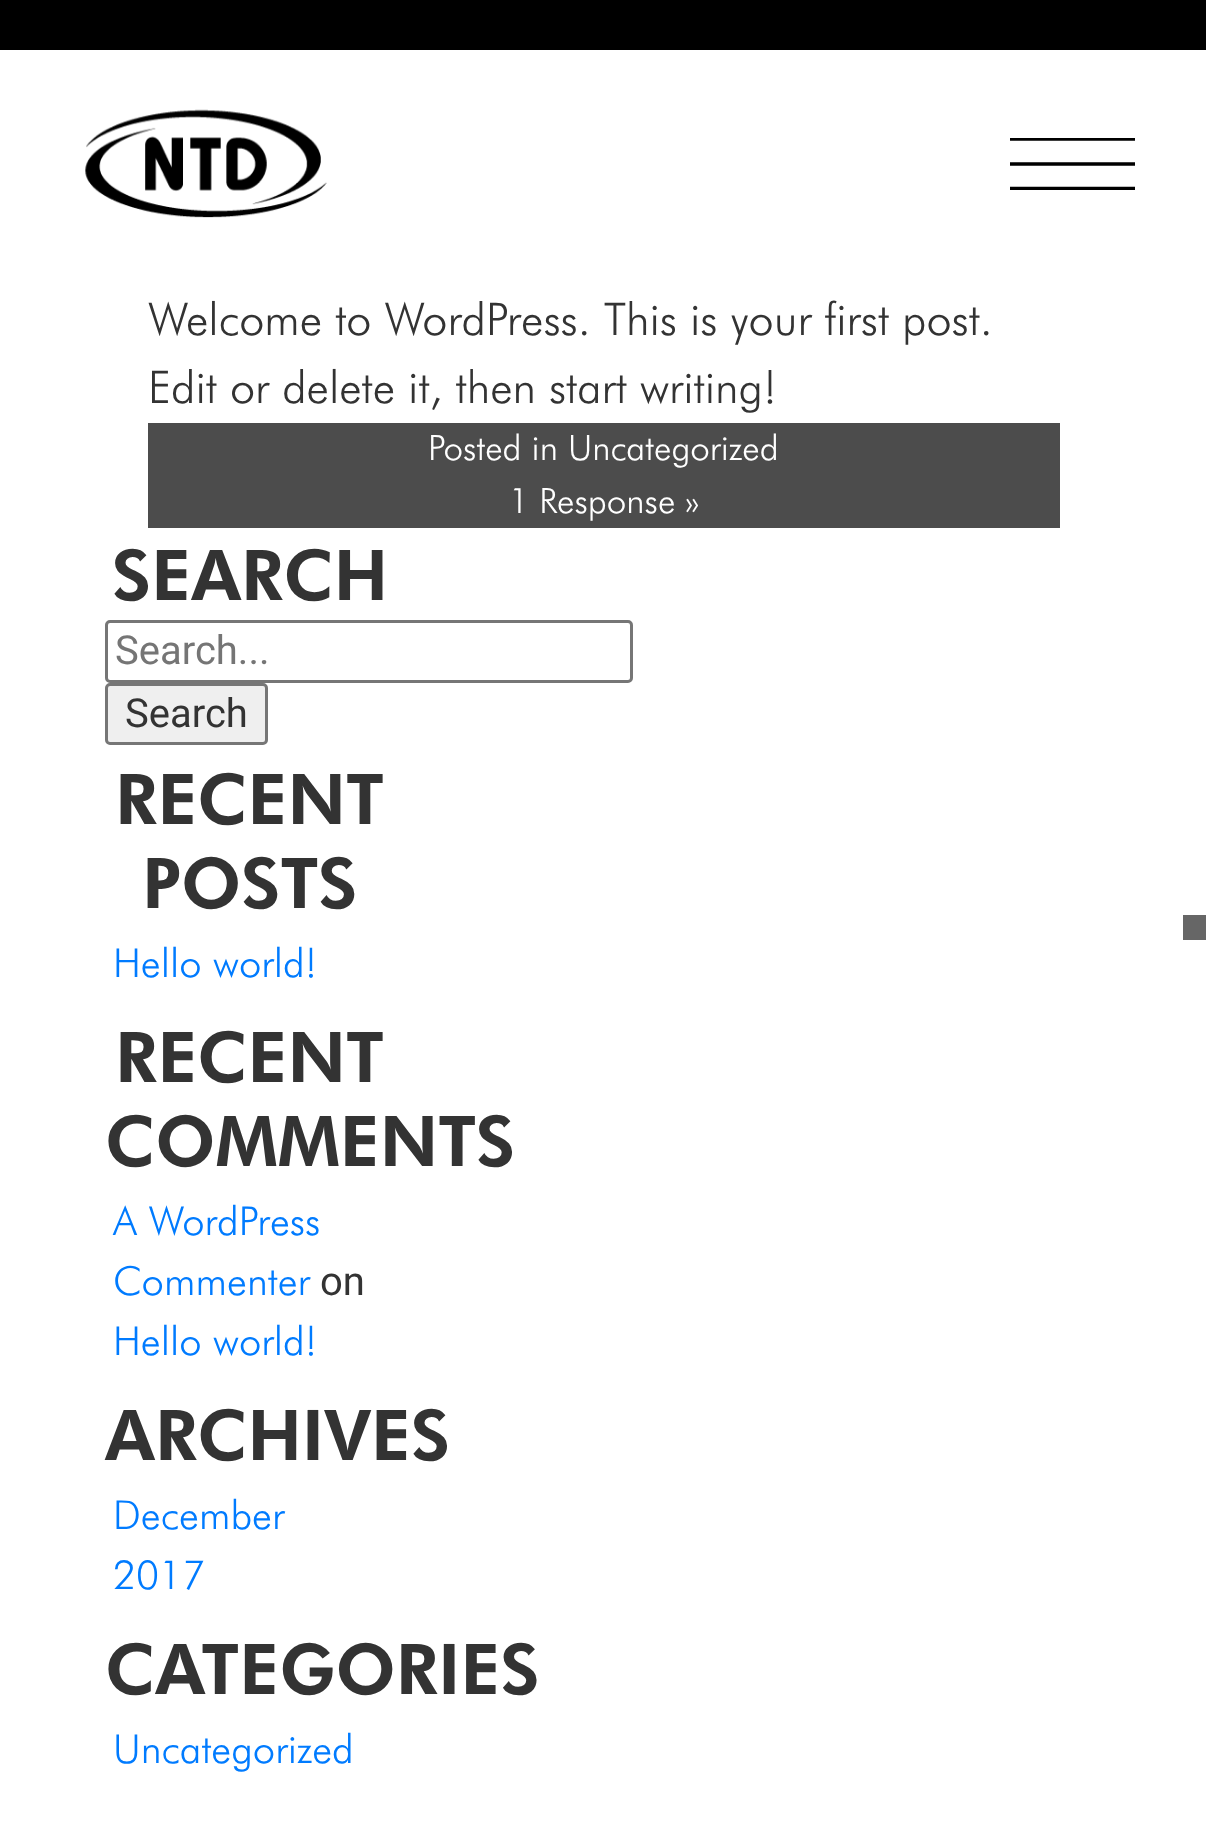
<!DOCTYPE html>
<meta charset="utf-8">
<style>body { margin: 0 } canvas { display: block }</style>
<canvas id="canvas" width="1206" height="1828"></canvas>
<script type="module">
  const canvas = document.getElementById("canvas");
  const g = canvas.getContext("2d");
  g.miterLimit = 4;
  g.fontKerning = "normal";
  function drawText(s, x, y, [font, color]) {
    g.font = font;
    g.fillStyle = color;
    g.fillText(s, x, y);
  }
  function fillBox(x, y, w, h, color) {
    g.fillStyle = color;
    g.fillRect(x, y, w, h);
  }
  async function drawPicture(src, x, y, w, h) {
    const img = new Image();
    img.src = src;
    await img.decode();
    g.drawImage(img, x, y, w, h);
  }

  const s1 = ["300 45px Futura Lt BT", "#333333"];
  const s2 = ["300 35px Futura Lt BT", "#FFFFFF"];
  const s3 = ["900 70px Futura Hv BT", "#333333"];
  const s4 = ["40px Roboto", "#757575"];
  const s5 = ["40px Roboto", "#333333"];
  const s6 = ["300 40px Futura Lt BT", "#007BFF"];

  fillBox(0, 0, 1206, 1828, "#FFFFFF");
  fillBox(0, 0, 1206, 50, "#000000");
  await drawPicture("pic1.png", 85, 109, 242, 109);
  g.save();
  g.beginPath();
  g.rect(1010, 138, 125, 52);
  g.clip();
  g.beginPath();
  g.moveTo(1010, 139);
  g.lineTo(1135, 139);
  g.moveTo(1010, 164);
  g.lineTo(1135, 164);
  g.moveTo(1010, 188.5);
  g.lineTo(1135, 188.5);
  g.strokeStyle = "#000000";
  g.lineWidth = 3.3;
  g.stroke();
  g.restore();
  drawText("Welcome to WordPress. This is your first post.", 148, 335, s1);
  drawText("Edit or delete it, then start writing!", 148, 403, s1);
  fillBox(148, 423, 912, 105, "#4C4C4C");
  drawText("Posted in Uncategorized", 428, 460, s2);
  drawText("1 Response »", 509, 513, s2);
  drawText("SEARCH", 112, 600, s3);
  g.beginPath();
  g.roundRect(106.5, 621.5, 525, 60, 3.5);
  g.strokeStyle = "#767676";
  g.lineWidth = 3;
  g.stroke();
  drawText("Search...", 115, 664, s4);
  g.fillStyle = "#EFEFEF";
  g.beginPath();
  g.roundRect(106.5, 684.5, 160, 59, 3.5);
  g.fill();
  g.stroke();
  drawText("Search", 125, 727, s5);
  drawText("RECENT", 115, 824, s3);
  drawText("POSTS", 142, 908, s3);
  drawText("Hello world!", 113, 977, s6);
  drawText("RECENT", 115, 1082, s3);
  drawText("COMMENTS", 105, 1166, s3);
  drawText("A WordPress", 113, 1235, s6);
  drawText("Commenter", 113, 1295, s6);
  drawText("on", 320, 1295, s5);
  drawText("Hello world!", 113, 1355, s6);
  drawText("ARCHIVES", 105, 1460, s3);
  drawText("December", 113, 1529, s6);
  drawText("2017", 113, 1589, s6);
  drawText("CATEGORIES", 105, 1694, s3);
  drawText("Uncategorized", 113, 1763, s6);
  fillBox(1183, 915, 23, 25, "#666666");
</script>
